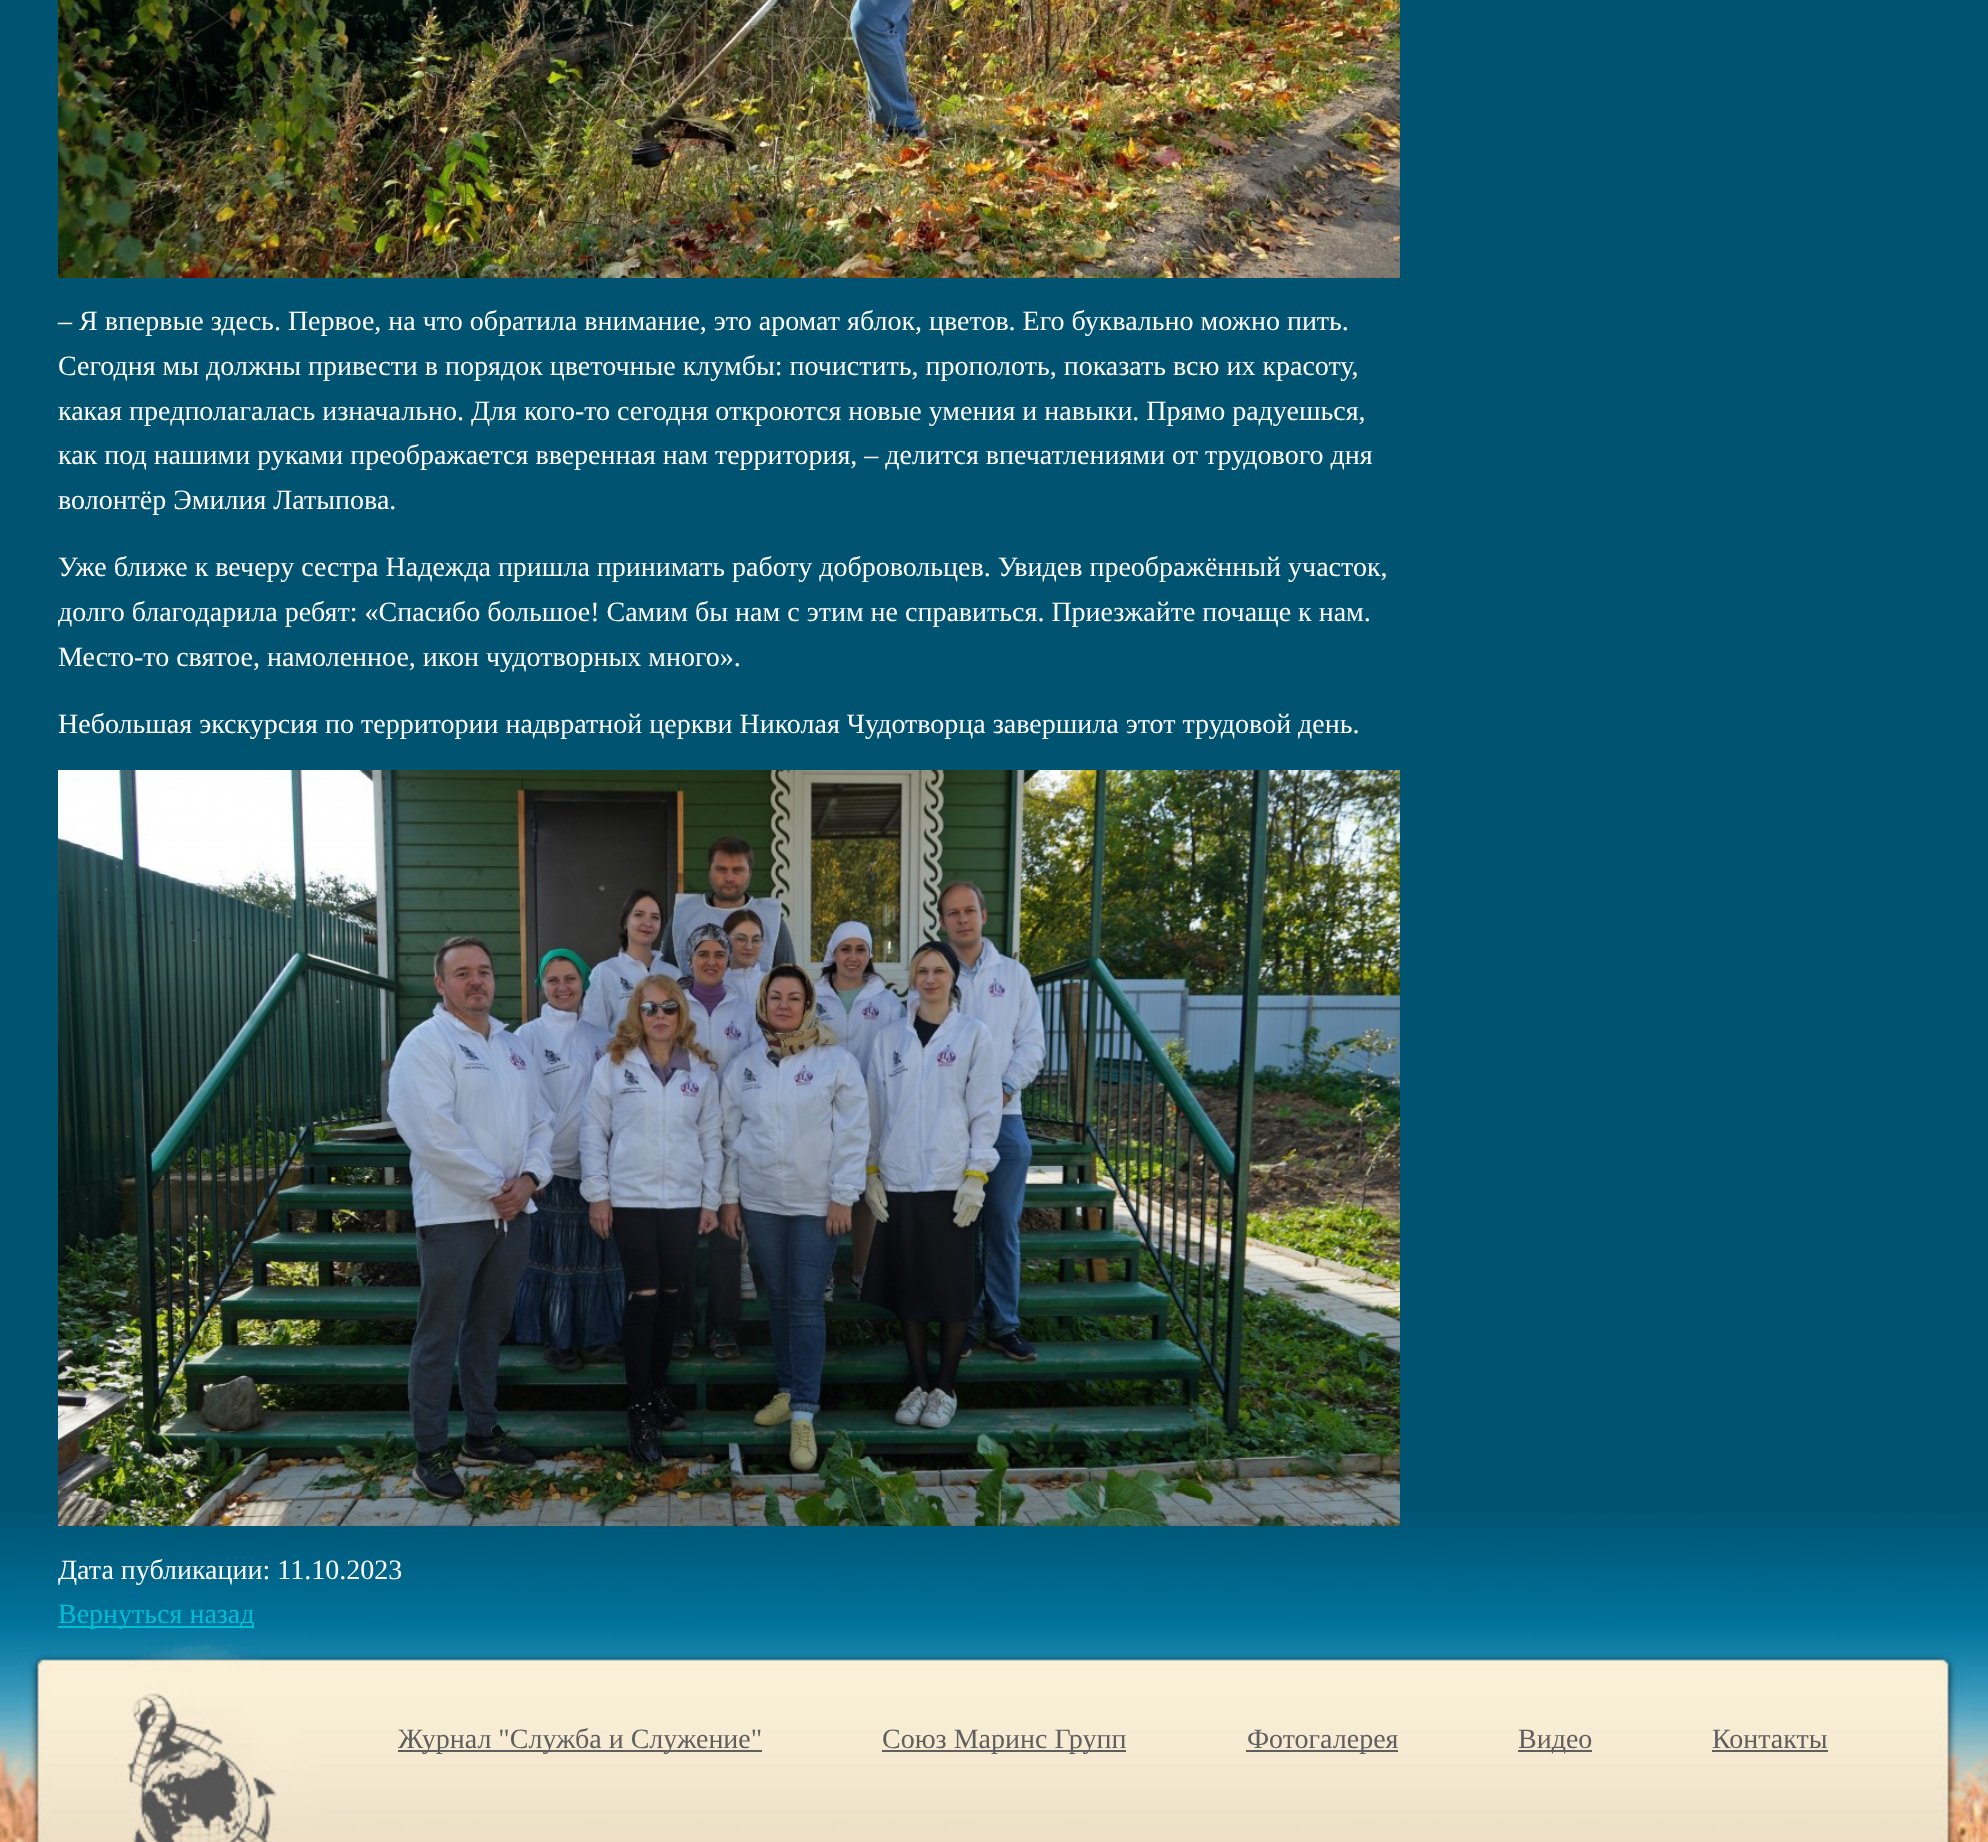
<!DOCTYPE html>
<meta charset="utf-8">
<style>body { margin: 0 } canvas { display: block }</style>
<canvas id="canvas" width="1988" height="1842"></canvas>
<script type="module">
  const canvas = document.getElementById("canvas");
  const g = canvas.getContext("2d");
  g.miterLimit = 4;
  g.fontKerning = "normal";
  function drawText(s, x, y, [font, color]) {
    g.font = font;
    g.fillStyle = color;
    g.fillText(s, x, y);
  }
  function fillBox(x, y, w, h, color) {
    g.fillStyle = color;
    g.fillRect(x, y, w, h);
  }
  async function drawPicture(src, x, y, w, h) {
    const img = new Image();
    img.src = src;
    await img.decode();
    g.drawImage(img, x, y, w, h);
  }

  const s1 = ["28px Liberation Serif", "#FFFFFF"];
  const s2 = ["28px Liberation Serif", "#00BED5"];
  const s3 = ["28px Liberation Serif", "#5F5F5F"];

  fillBox(0, 0, 1988, 1842, "#005371");
  await drawPicture("pic1.png", 0, 1512, 1988, 129);
  await drawPicture("pic2.png", 58, 0, 1342, 278);
  drawText("– Я впервые здесь. Первое, на что обратила внимание, это аромат яблок, цветов. Его буквально можно пить.", 58, 330, s1);
  drawText("Сегодня мы должны привести в порядок цветочные клумбы: почистить, прополоть, показать всю их красоту,", 58, 375, s1);
  drawText("какая предполагалась изначально. Для кого-то сегодня откроются новые умения и навыки. Прямо радуешься,", 58, 420, s1);
  drawText("как под нашими руками преображается вверенная нам территория, – делится впечатлениями от трудового дня", 58, 464, s1);
  drawText("волонтёр Эмилия Латыпова.", 58, 509, s1);
  drawText("Уже ближе к вечеру сестра Надежда пришла принимать работу добровольцев. Увидев преображённый участок,", 58, 576, s1);
  drawText("долго благодарила ребят: «Спасибо большое! Самим бы нам с этим не справиться. Приезжайте почаще к нам.", 58, 621, s1);
  drawText("Место-то святое, намоленное, икон чудотворных много».", 58, 666, s1);
  drawText("Небольшая экскурсия по территории надвратной церкви Николая Чудотворца завершила этот трудовой день.", 58, 733, s1);
  await drawPicture("pic3.png", 58, 770, 1342, 756);
  drawText("Дата публикации: 11.10.2023", 58, 1579, s1);
  fillBox(58, 1626, 196, 2, "#00BED5");
  drawText("Вернуться назад", 58, 1623, s2);
  await drawPicture("pic4.png", 0, 1641, 1988, 201);
  fillBox(398, 1750, 364, 2, "#5F5F5F");
  drawText("Журнал \"Служба и Служение\"", 398, 1748, s3);
  fillBox(882, 1750, 244, 2, "#5F5F5F");
  drawText("Союз Маринс Групп", 882, 1748, s3);
  fillBox(1246, 1750, 152, 2, "#5F5F5F");
  drawText("Фотогалерея", 1247, 1748, s3);
  fillBox(1518, 1750, 74, 2, "#5F5F5F");
  drawText("Видео", 1518, 1748, s3);
  drawText("Контакты", 1712, 1748, s3);
  fillBox(1712, 1750, 116, 2, "#5F5F5F");
</script>
